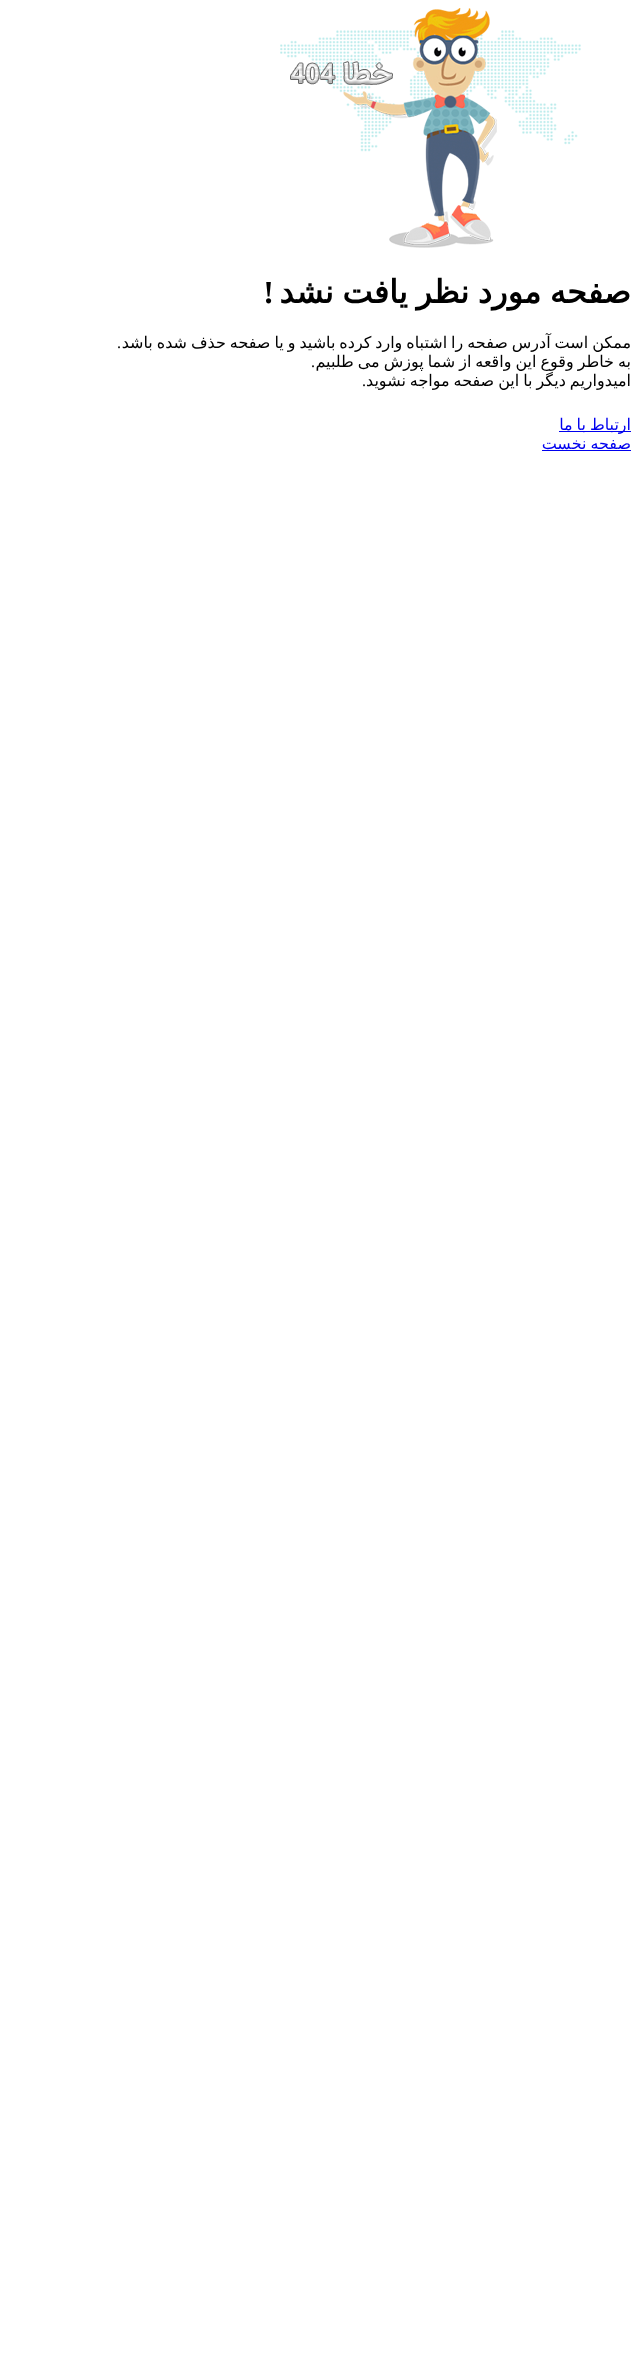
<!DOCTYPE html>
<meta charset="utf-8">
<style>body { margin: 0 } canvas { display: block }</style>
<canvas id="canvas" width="639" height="2361"></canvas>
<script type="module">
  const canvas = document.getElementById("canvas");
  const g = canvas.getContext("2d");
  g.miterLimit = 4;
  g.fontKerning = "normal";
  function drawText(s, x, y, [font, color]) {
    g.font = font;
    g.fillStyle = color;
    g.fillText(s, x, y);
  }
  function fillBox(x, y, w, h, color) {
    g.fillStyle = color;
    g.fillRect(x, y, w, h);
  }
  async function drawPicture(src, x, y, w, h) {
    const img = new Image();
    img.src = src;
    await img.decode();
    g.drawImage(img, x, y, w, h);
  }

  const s1 = ["bold 32px DejaVu Sans", "#000000"];
  const s2 = ["bold 32px Liberation Serif", "#000000"];
  const s3 = ["16px DejaVu Sans", "#000000"];
  const s4 = ["16px Liberation Serif", "#000000"];
  const s5 = ["16px DejaVu Sans", "#0000EE"];

  fillBox(0, 0, 639, 2361, "#FFFFFF");
  await drawPicture("pic1.png", 280, 8, 301, 240);
  g.wordSpacing = "-1.5px";
  g.direction = "rtl";
  drawText("صفحه مورد نظر یافت نشد", 631, 303, s1);
  g.wordSpacing = "0px";
  drawText("!", 274, 303, s2);
  g.wordSpacing = "-1.1px";
  drawText("ممکن است آدرس صفحه را اشتباه وارد کرده باشید و یا صفحه حذف شده باشد", 631, 348, s3);
  g.wordSpacing = "0px";
  drawText(".", 121, 348, s4);
  g.wordSpacing = "-1.1px";
  drawText("به خاطر وقوع این واقعه از شما پوزش می طلبیم", 631, 367, s3);
  g.wordSpacing = "0px";
  drawText(".", 315, 367, s4);
  g.wordSpacing = "-1.1px";
  drawText("امیدواریم دیگر با این صفحه مواجه نشوید", 631, 386, s3);
  g.wordSpacing = "0px";
  drawText(".", 366, 386, s4);
  fillBox(559, 431, 72, 1, "#0000EE");
  g.wordSpacing = "-1.1px";
  drawText("ارتباط با ما", 631, 430, s5);
  drawText("صفحه نخست", 631, 449, s5);
  fillBox(542, 450, 89, 1, "#0000EE");
</script>
